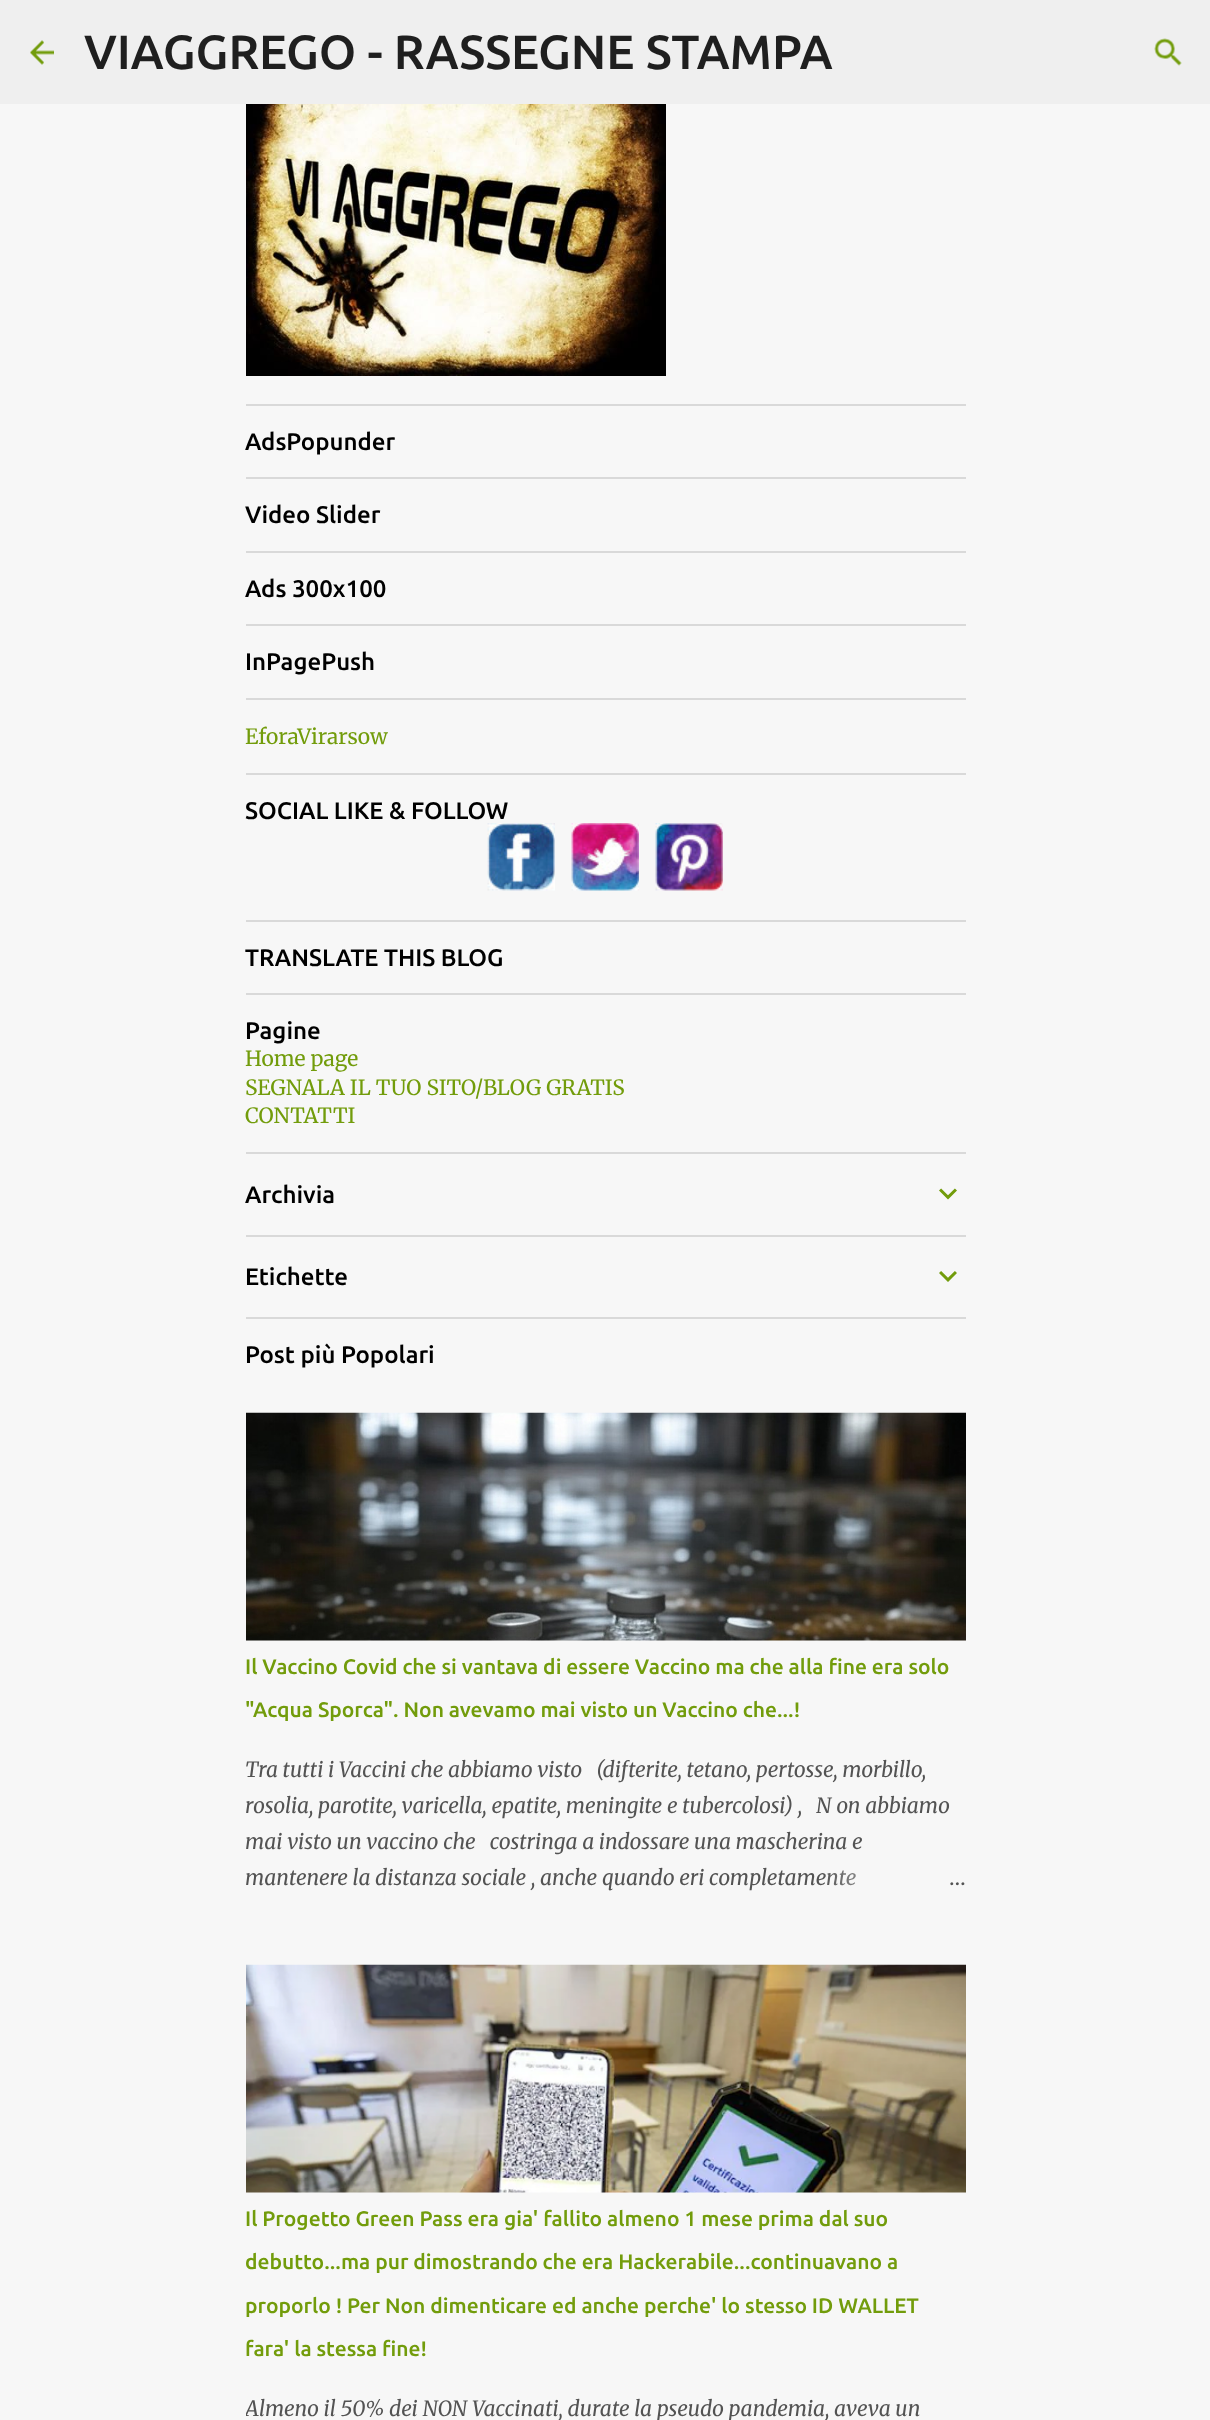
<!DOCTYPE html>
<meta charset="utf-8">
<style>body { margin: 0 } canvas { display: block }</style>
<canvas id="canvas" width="1210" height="2420"></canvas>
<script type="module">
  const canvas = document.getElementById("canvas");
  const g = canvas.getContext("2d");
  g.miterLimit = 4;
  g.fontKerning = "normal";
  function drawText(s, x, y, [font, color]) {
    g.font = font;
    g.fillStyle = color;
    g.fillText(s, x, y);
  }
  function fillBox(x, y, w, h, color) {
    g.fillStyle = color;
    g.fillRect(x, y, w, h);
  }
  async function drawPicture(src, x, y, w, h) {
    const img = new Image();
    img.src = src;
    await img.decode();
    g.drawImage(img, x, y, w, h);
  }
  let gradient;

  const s1 = ["500 48px Ubuntu", "#1F1F1F"];
  const s2 = ["500 24px Ubuntu", "#000000"];
  const s3 = ["21px Merriweather", "#729C0B"];
  const s4 = ["500 21px Ubuntu", "#729C0B"];
  const s5 = ["italic 21px Merriweather", "#535353"];
  const s6 = ["21px Merriweather", "#535353"];

  fillBox(0, 0, 1210, 2420, "#F7F7F7");
  fillBox(0, 0, 1210, 104, "#EFEFEF");
  await drawPicture("pic1.png", 30, 40, 24, 25);
  drawText("VIAGGREGO - RASSEGNE STAMPA", 84, 69, s1);
  await drawPicture("pic2.png", 1154, 38, 28, 28);
  await drawPicture("pic3.png", 246, 104, 420, 272);
  fillBox(246, 404, 720, 2, "#D9D9D9");
  drawText("AdsPopunder", 245, 450, s2);
  fillBox(246, 477, 720, 2, "#D9D9D9");
  drawText("Video Slider", 245, 523, s2);
  fillBox(246, 551, 720, 2, "#D9D9D9");
  drawText("Ads 300x100", 245, 597, s2);
  fillBox(246, 624, 720, 2, "#D9D9D9");
  drawText("InPagePush", 245, 670, s2);
  fillBox(246, 698, 720, 2, "#D9D9D9");
  drawText("EforaVirarsow", 245, 744, s3);
  fillBox(246, 773, 720, 2, "#D9D9D9");
  drawText("SOCIAL LIKE & FOLLOW", 245, 819, s2);
  await drawPicture("pic4.png", 487, 823, 68, 68);
  await drawPicture("pic5.png", 571, 823, 68, 68);
  await drawPicture("pic6.png", 655, 823, 68, 68);
  fillBox(246, 920, 720, 2, "#D9D9D9");
  drawText("TRANSLATE THIS BLOG", 245, 966, s2);
  fillBox(246, 993, 720, 2, "#D9D9D9");
  drawText("Pagine", 245, 1039, s2);
  drawText("Home page", 245, 1066, s3);
  drawText("SEGNALA IL TUO SITO/BLOG GRATIS", 245, 1095, s3);
  drawText("CONTATTI", 245, 1123, s3);
  fillBox(246, 1152, 720, 2, "#D9D9D9");
  drawText("Archivia", 245, 1203, s2);
  await drawPicture("pic7.png", 939, 1188, 18, 12);
  fillBox(246, 1235, 720, 2, "#D9D9D9");
  drawText("Etichette", 245, 1285, s2);
  await drawPicture("pic8.png", 939, 1271, 18, 11);
  fillBox(246, 1317, 720, 2, "#D9D9D9");
  drawText("Post più Popolari", 245, 1363, s2);
  await drawPicture("pic9.png", 246, 1412, 720, 229);
  drawText("Il Vaccino Covid che si vantava di essere Vaccino ma che alla fine era solo", 245, 1674, s4);
  drawText("\"Acqua Sporca\". Non avevamo mai visto un Vaccino che...!", 245, 1717, s4);
  drawText("Tra tutti i Vaccini che abbiamo visto   (difterite, tetano, pertosse, morbillo,", 245, 1777, s5);
  drawText("rosolia, parotite, varicella, epatite, meningite e tubercolosi) ,   N on abbiamo", 245, 1813, s5);
  drawText("mai visto un vaccino che   costringa a indossare una mascherina e", 245, 1849, s5);
  drawText("mantenere la distanza sociale , anche quando eri completamente", 245, 1885, s5);
  gradient = g.createLinearGradient(966, 1878, 822, 1878);
  gradient.addColorStop(0, "#F7F7F7");
  gradient.addColorStop(0.2, "#F7F7F7");
  gradient.addColorStop(1, "rgba(247, 247, 247, 0)");
  g.fillStyle = gradient;
  g.fillRect(824, 1870, 32, 16);
  drawText("…", 949, 1885, s6);
  await drawPicture("pic10.png", 246, 1964, 720, 229);
  drawText("Il Progetto Green Pass era gia' fallito almeno 1 mese prima dal suo", 245, 2226, s4);
  drawText("debutto...ma pur dimostrando che era Hackerabile...continuavano a", 245, 2269, s4);
  drawText("proporlo ! Per Non dimenticare ed anche perche' lo stesso ID WALLET", 245, 2313, s4);
  drawText("fara' la stessa fine!", 245, 2356, s4);
  g.save();
  g.beginPath();
  g.rect(246, 2391, 720, 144);
  g.clip();
  drawText("Almeno il 50% dei NON Vaccinati, durate la pseudo pandemia, aveva un", 245, 2416, s5);
  g.restore();
</script>
